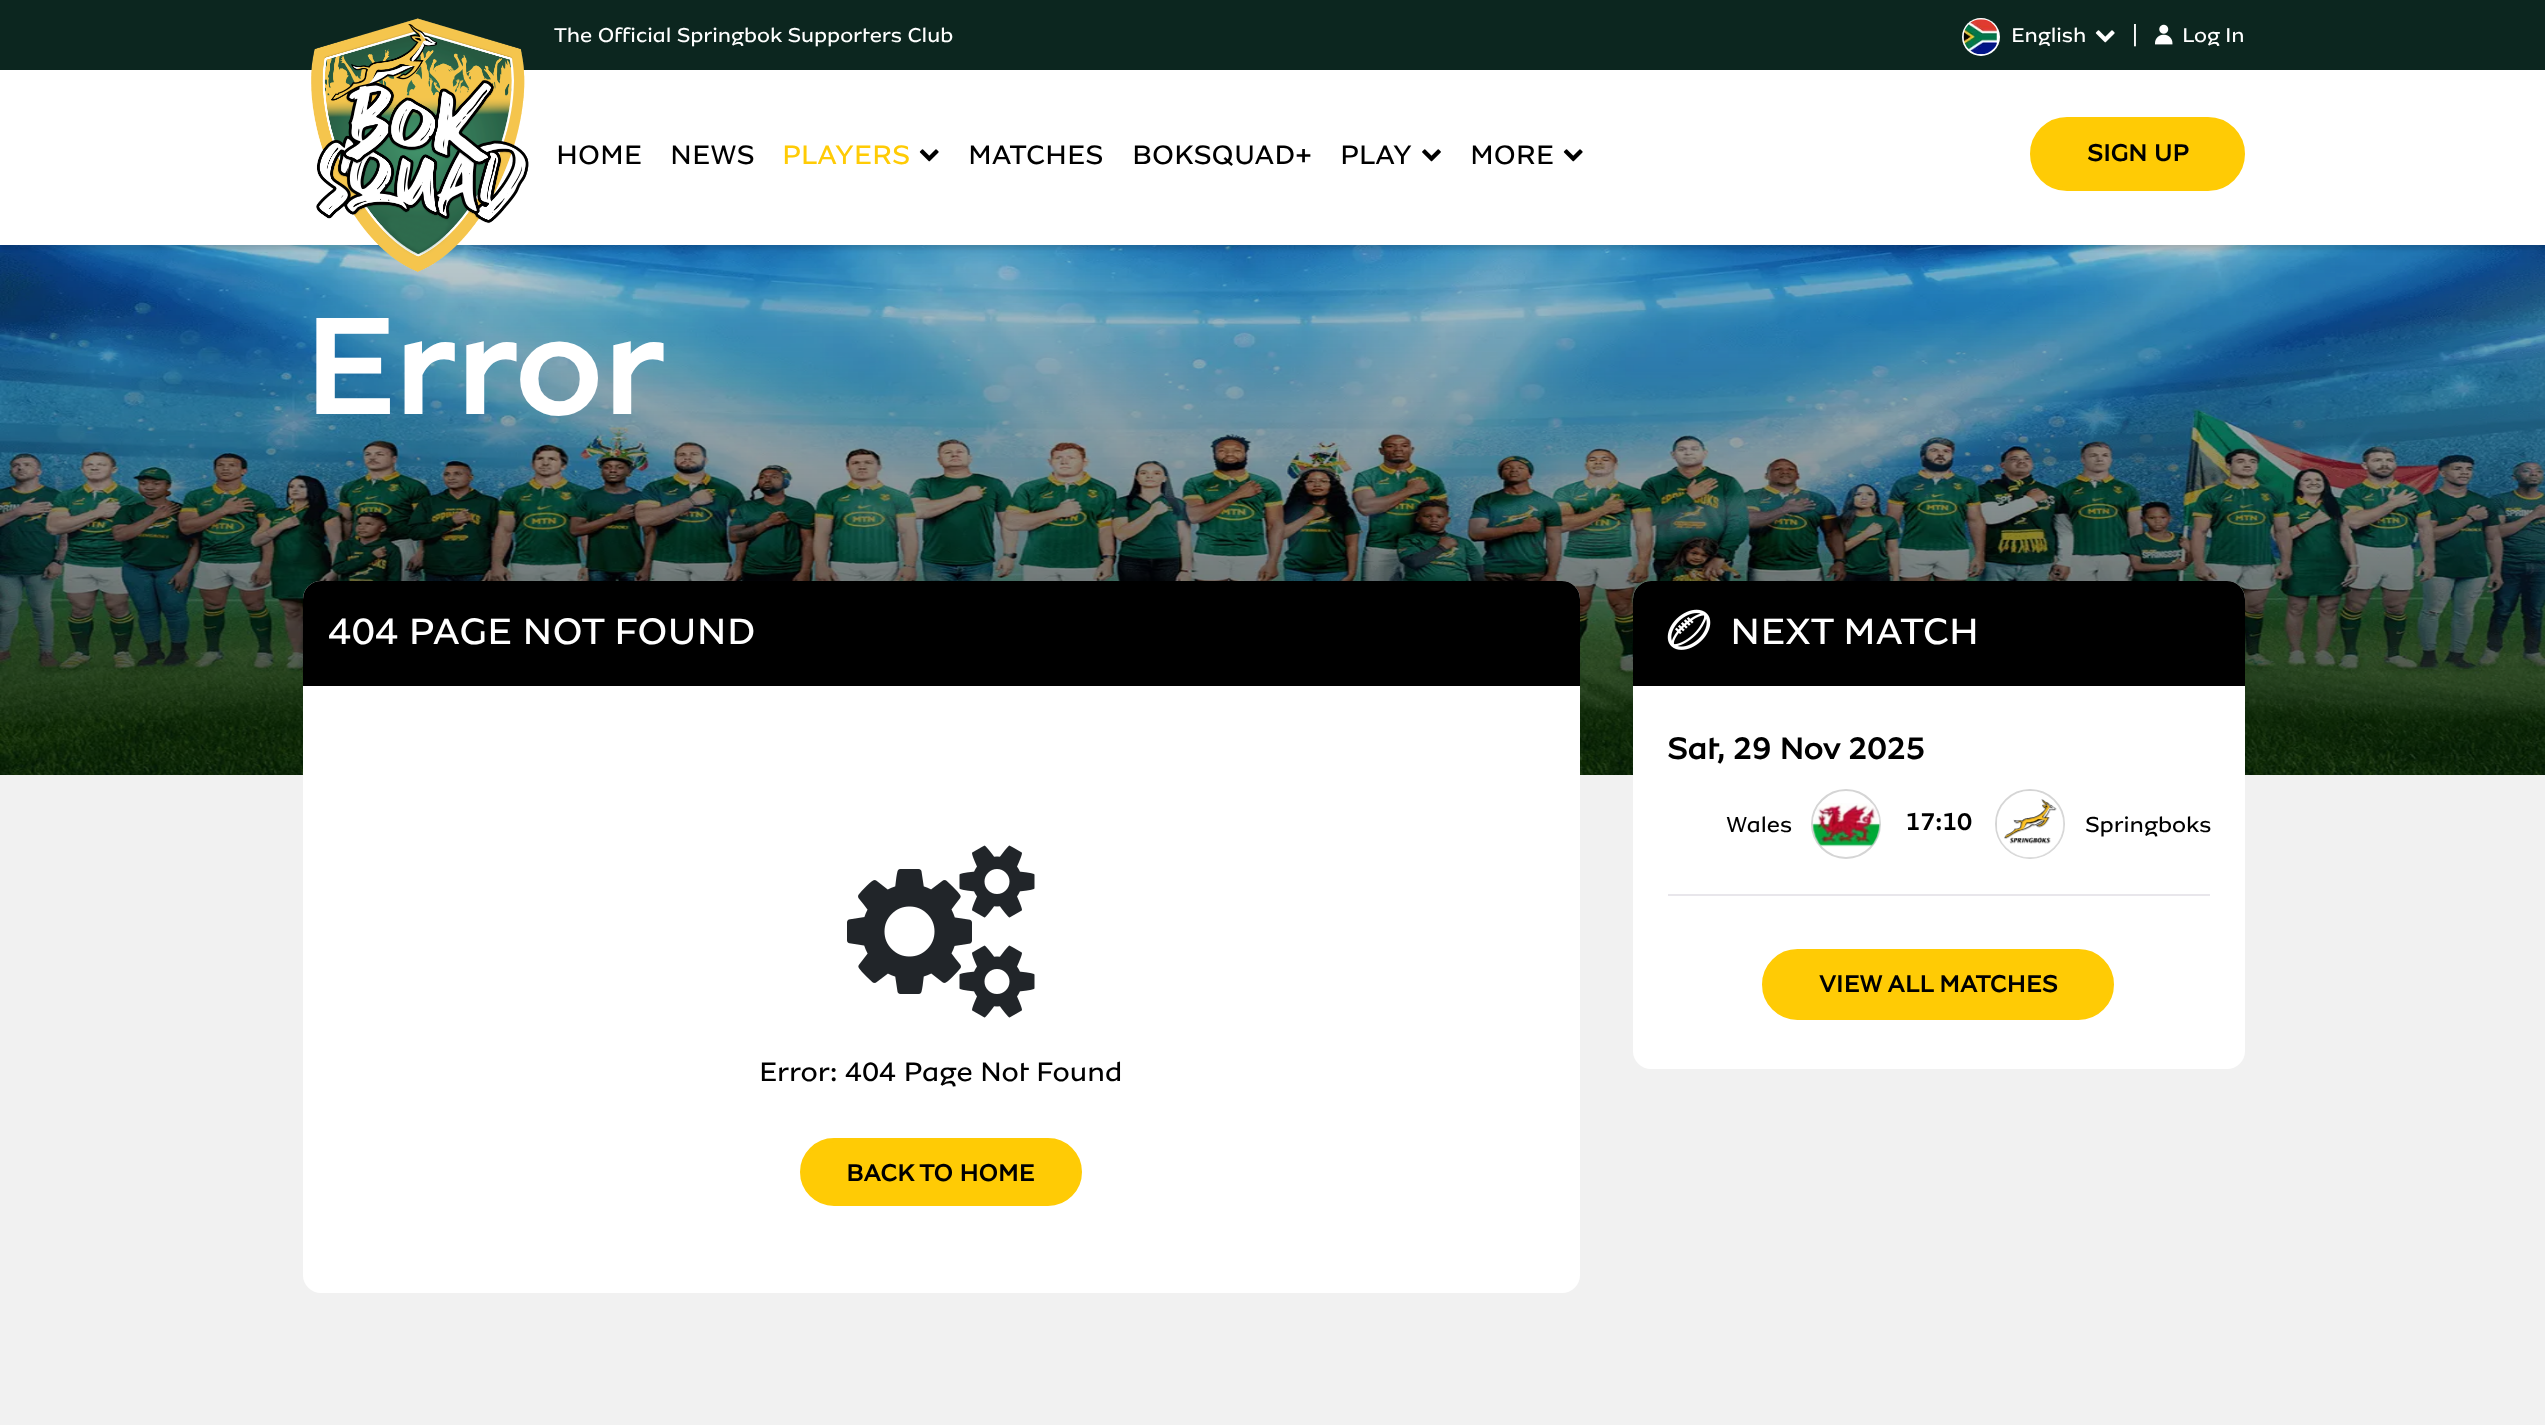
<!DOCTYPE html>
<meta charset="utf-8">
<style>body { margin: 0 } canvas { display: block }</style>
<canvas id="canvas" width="2545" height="1425"></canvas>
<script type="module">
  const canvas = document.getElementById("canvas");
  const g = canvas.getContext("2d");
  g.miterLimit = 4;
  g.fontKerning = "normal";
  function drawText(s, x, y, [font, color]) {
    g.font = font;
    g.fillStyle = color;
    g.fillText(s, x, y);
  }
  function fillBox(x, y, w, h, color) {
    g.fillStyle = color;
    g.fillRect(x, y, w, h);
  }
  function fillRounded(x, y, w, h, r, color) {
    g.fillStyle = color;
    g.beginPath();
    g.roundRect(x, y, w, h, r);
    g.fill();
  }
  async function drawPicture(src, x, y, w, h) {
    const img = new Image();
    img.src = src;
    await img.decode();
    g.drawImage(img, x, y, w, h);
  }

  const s1 = ["21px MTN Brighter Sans", "#FFFFFF"];
  const s2 = ["28px MTN Brighter Sans", "#000000"];
  const s3 = ["28px MTN Brighter Sans", "#FFCB05"];
  const s4 = ["bold 24.5px MTN Brighter Sans", "#000000"];
  const s5 = ["bold 140px MTN Brighter Sans", "#FFFFFF"];
  const s6 = ["38.5px MTN Brighter Sans", "#FFFFFF"];
  const s7 = ["bold 31.5px MTN Brighter Sans", "#000000"];
  const s8 = ["22.75px MTN Brighter Sans", "#000000"];

  fillBox(0, 0, 2545, 1425, "#F1F1F1");
  fillBox(0, 0, 2545, 70, "#0C261F");
  drawText("The Official Springbok Supporters Club", 554, 42, s1);
  g.beginPath();
  g.arc(1981, 37, 19, 0, Math.PI * 2);
  g.fill();
  await drawPicture("pic1.png", 1963, 19, 34, 36);
  drawText("English", 2011, 42, s1);
  await drawPicture("pic2.png", 2095, 30, 20, 13);
  drawText("|", 2132, 42, s1);
  await drawPicture("pic3.png", 2155, 24, 18, 21);
  drawText("Log In", 2182, 42, s1);
  await drawPicture("pic7.png", 0, 245, 2545, 530);
  g.fillStyle = "rgba(0, 0, 0, 0.15)";
  g.filter = "blur(2px)";
  g.beginPath();
  g.rect(0, 74, 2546, 175);
  g.fill();
  g.filter = "none";
  fillBox(0, 70, 2545, 175, "#FFFFFF");
  await drawPicture("pic4.png", 311, 18, 218, 254);
  drawText("HOME", 556, 164, s2);
  drawText("NEWS", 670, 164, s2);
  drawText("PLAYERS", 782, 164, s3);
  await drawPicture("pic5.png", 919, 149, 20, 13);
  drawText("MATCHES", 968, 164, s2);
  drawText("BOKSQUAD+", 1132, 164, s2);
  drawText("PLAY", 1340, 164, s2);
  await drawPicture("pic6.png", 1422, 149, 19, 13);
  drawText("MORE", 1470, 164, s2);
  await drawPicture("pic5.png", 1563, 149, 20, 13);
  g.fillStyle = "#FFCB05";
  g.beginPath();
  g.roundRect(2032, 119, 211, 70, 35);
  g.fill();
  g.strokeStyle = "#FFCB05";
  g.lineWidth = 4;
  g.stroke();
  drawText("SIGN UP", 2087, 161, s4);
  g.letterSpacing = "1.5px";
  drawText("Error", 302, 414, s5);
  fillRounded(303, 581, 1277, 712, 18, "#FFFFFF");
  g.fillStyle = "#000000";
  g.beginPath();
  g.roundRect(303, 581, 1277, 105, [18, 18, 0, 0]);
  g.fill();
  g.letterSpacing = "0px";
  drawText("404 PAGE NOT FOUND", 328, 644, s6);
  await drawPicture("pic8.png", 847, 845, 188, 173);
  drawText("Error: 404 Page Not Found", 759, 1081, s2);
  g.fillStyle = "#FFCB05";
  g.beginPath();
  g.roundRect(802, 1140, 278, 64, 32);
  g.fill();
  g.stroke();
  drawText("BACK TO HOME", 846, 1181, s4);
  fillRounded(1633, 581, 612, 488, 18, "#FFFFFF");
  g.fillStyle = "#000000";
  g.beginPath();
  g.roundRect(1633, 581, 612, 105, [18, 18, 0, 0]);
  g.fill();
  await drawPicture("pic9.png", 1667, 609, 44, 41);
  drawText("NEXT MATCH", 1730, 644, s6);
  drawText("Sat, 29 Nov 2025", 1667, 759, s7);
  fillBox(1668, 894, 542, 2, "#E8E6EB");
  drawText("Wales", 1726, 832, s8);
  g.beginPath();
  g.arc(1846, 824, 34, 0, Math.PI * 2);
  g.strokeStyle = "#D5D5D5";
  g.lineWidth = 2;
  g.stroke();
  await drawPicture("pic10.png", 1812, 803, 69, 44);
  drawText("17:10", 1905, 830, s4);
  g.beginPath();
  g.arc(2030, 824, 34, 0, Math.PI * 2);
  g.stroke();
  await drawPicture("pic11.png", 1997, 791, 67, 67);
  drawText("Springboks", 2085, 832, s8);
  g.fillStyle = "#FFCB05";
  g.beginPath();
  g.roundRect(1764, 951, 348, 67, 33.5);
  g.fill();
  g.strokeStyle = "#FFCB05";
  g.lineWidth = 4;
  g.stroke();
  drawText("VIEW ALL MATCHES", 1819, 992, s4);
</script>
